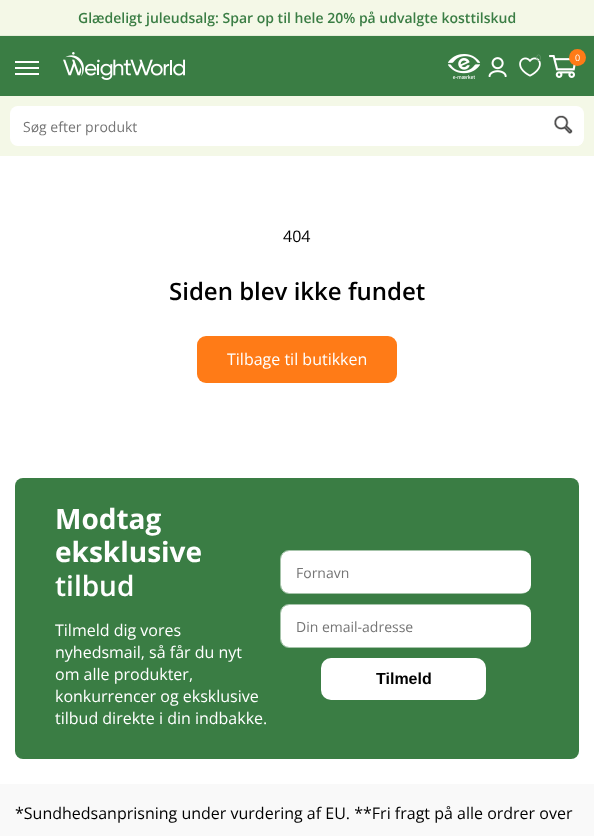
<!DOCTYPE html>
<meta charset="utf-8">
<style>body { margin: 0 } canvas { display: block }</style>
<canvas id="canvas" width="609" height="836"></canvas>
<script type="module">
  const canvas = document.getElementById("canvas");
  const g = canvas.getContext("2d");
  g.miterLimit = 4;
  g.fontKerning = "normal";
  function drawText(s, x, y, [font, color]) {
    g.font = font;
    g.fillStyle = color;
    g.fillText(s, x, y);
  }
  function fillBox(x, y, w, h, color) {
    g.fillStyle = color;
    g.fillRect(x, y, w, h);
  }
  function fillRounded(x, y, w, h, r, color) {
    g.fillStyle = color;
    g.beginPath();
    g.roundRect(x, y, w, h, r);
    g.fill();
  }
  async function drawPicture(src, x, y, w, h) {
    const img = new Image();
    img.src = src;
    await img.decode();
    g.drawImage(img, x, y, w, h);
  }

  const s1 = ["600 14px Open Sans", "#3A7D44"];
  const s2 = ["9px Open Sans", "#679A6E"];
  const s3 = ["9px Open Sans", "#FFFFFF"];
  const s4 = ["14px Open Sans", "#757575"];
  const s5 = ["16px Open Sans", "#000000"];
  const s6 = ["600 24px Open Sans", "#000000"];
  const s7 = ["16px Open Sans", "#FFFFFF"];
  const s8 = ["bold 28px Open Sans", "#FFFFFF"];
  const s9 = ["600 28px Open Sans", "#FFFFFF"];
  const s10 = ["bold 16px Liberation Sans", "#000000"];

  fillBox(0, 0, 609, 836, "#FFFFFF");
  fillBox(0, 0, 594, 35, "#F4F8E7");
  fillBox(0, 35, 594, 1, "#E5EEDA");
  drawText("Glædeligt juleudsalg: Spar op til hele 20% på udvalgte kosttilskud", 78, 23, s1);
  fillBox(0, 36, 594, 60, "#3A7D44");
  await drawPicture("pic1.png", 63, 52, 122, 28);
  await drawPicture("pic2.png", 447, 54, 34, 25);
  await drawPicture("pic3.png", 488, 57, 19, 20);
  await drawPicture("pic4.png", 519, 57, 22, 20);
  drawText("0", 536, 61, s2);
  await drawPicture("pic5.png", 549, 55, 27, 23);
  g.fillStyle = "#FF7B17";
  g.beginPath();
  g.arc(577.5, 57.5, 8.5, 0, Math.PI * 2);
  g.fill();
  drawText("0", 575, 61, s3);
  fillBox(15, 67, 24, 2, "#FFFFFF");
  fillBox(15, 61, 24, 2, "#FFFFFF");
  fillBox(15, 73, 24, 2, "#FFFFFF");
  fillBox(0, 96, 594, 60, "#F4F8E7");
  fillRounded(10, 106, 574, 40, 8, "#FFFFFF");
  drawText("Søg efter produkt", 23, 132, s4);
  g.save();
  g.beginPath();
  g.roundRect(10, 106, 574, 40, 8);
  g.clip();
  fillRounded(539, 107, 44, 42, 8, "#FFFFFF");
  g.restore();
  await drawPicture("pic6.png", 554, 115, 19, 19);
  drawText("404", 283, 242, s5);
  drawText("Siden blev ikke fundet", 169, 300, s6);
  fillRounded(197, 336, 200, 47, 9, "#FF7B17");
  drawText("Tilbage til butikken", 227, 365, s7);
  fillRounded(15, 478, 564, 281, 8, "#3A7D44");
  drawText("Modtag", 55, 529, s8);
  drawText("eksklusive", 55, 562, s8);
  drawText("tilbud", 55, 596, s9);
  drawText("Tilmeld dig vores", 55, 636, s7);
  drawText("nyhedsmail, så får du nyt", 55, 658, s7);
  drawText("om alle produkter,", 55, 680, s7);
  drawText("konkurrencer og eksklusive", 55, 702, s7);
  drawText("tilbud direkte i din indbakke.", 55, 724, s7);
  fillRounded(281, 551, 250, 42, 8, "#FFFFFF");
  g.beginPath();
  g.roundRect(280.5, 550.5, 249, 43, 8.5);
  g.strokeStyle = "rgba(255, 255, 255, 0.55)";
  g.stroke();
  drawText("Fornavn", 296, 578, s4);
  fillRounded(281, 605, 250, 42, 8, "#FFFFFF");
  g.beginPath();
  g.roundRect(280.5, 604.5, 249, 43, 8.5);
  g.stroke();
  drawText("Din email-adresse", 296, 632, s4);
  fillRounded(321, 658, 165, 42, 10, "#FFFFFF");
  drawText("Tilmeld", 376, 684, s10);
  fillBox(0, 784, 594, 52, "#F9F9F9");
  drawText("*Sundhedsanprisning under vurdering af EU. **Fri fragt på alle ordrer over", 15, 819, s5);
</script>
